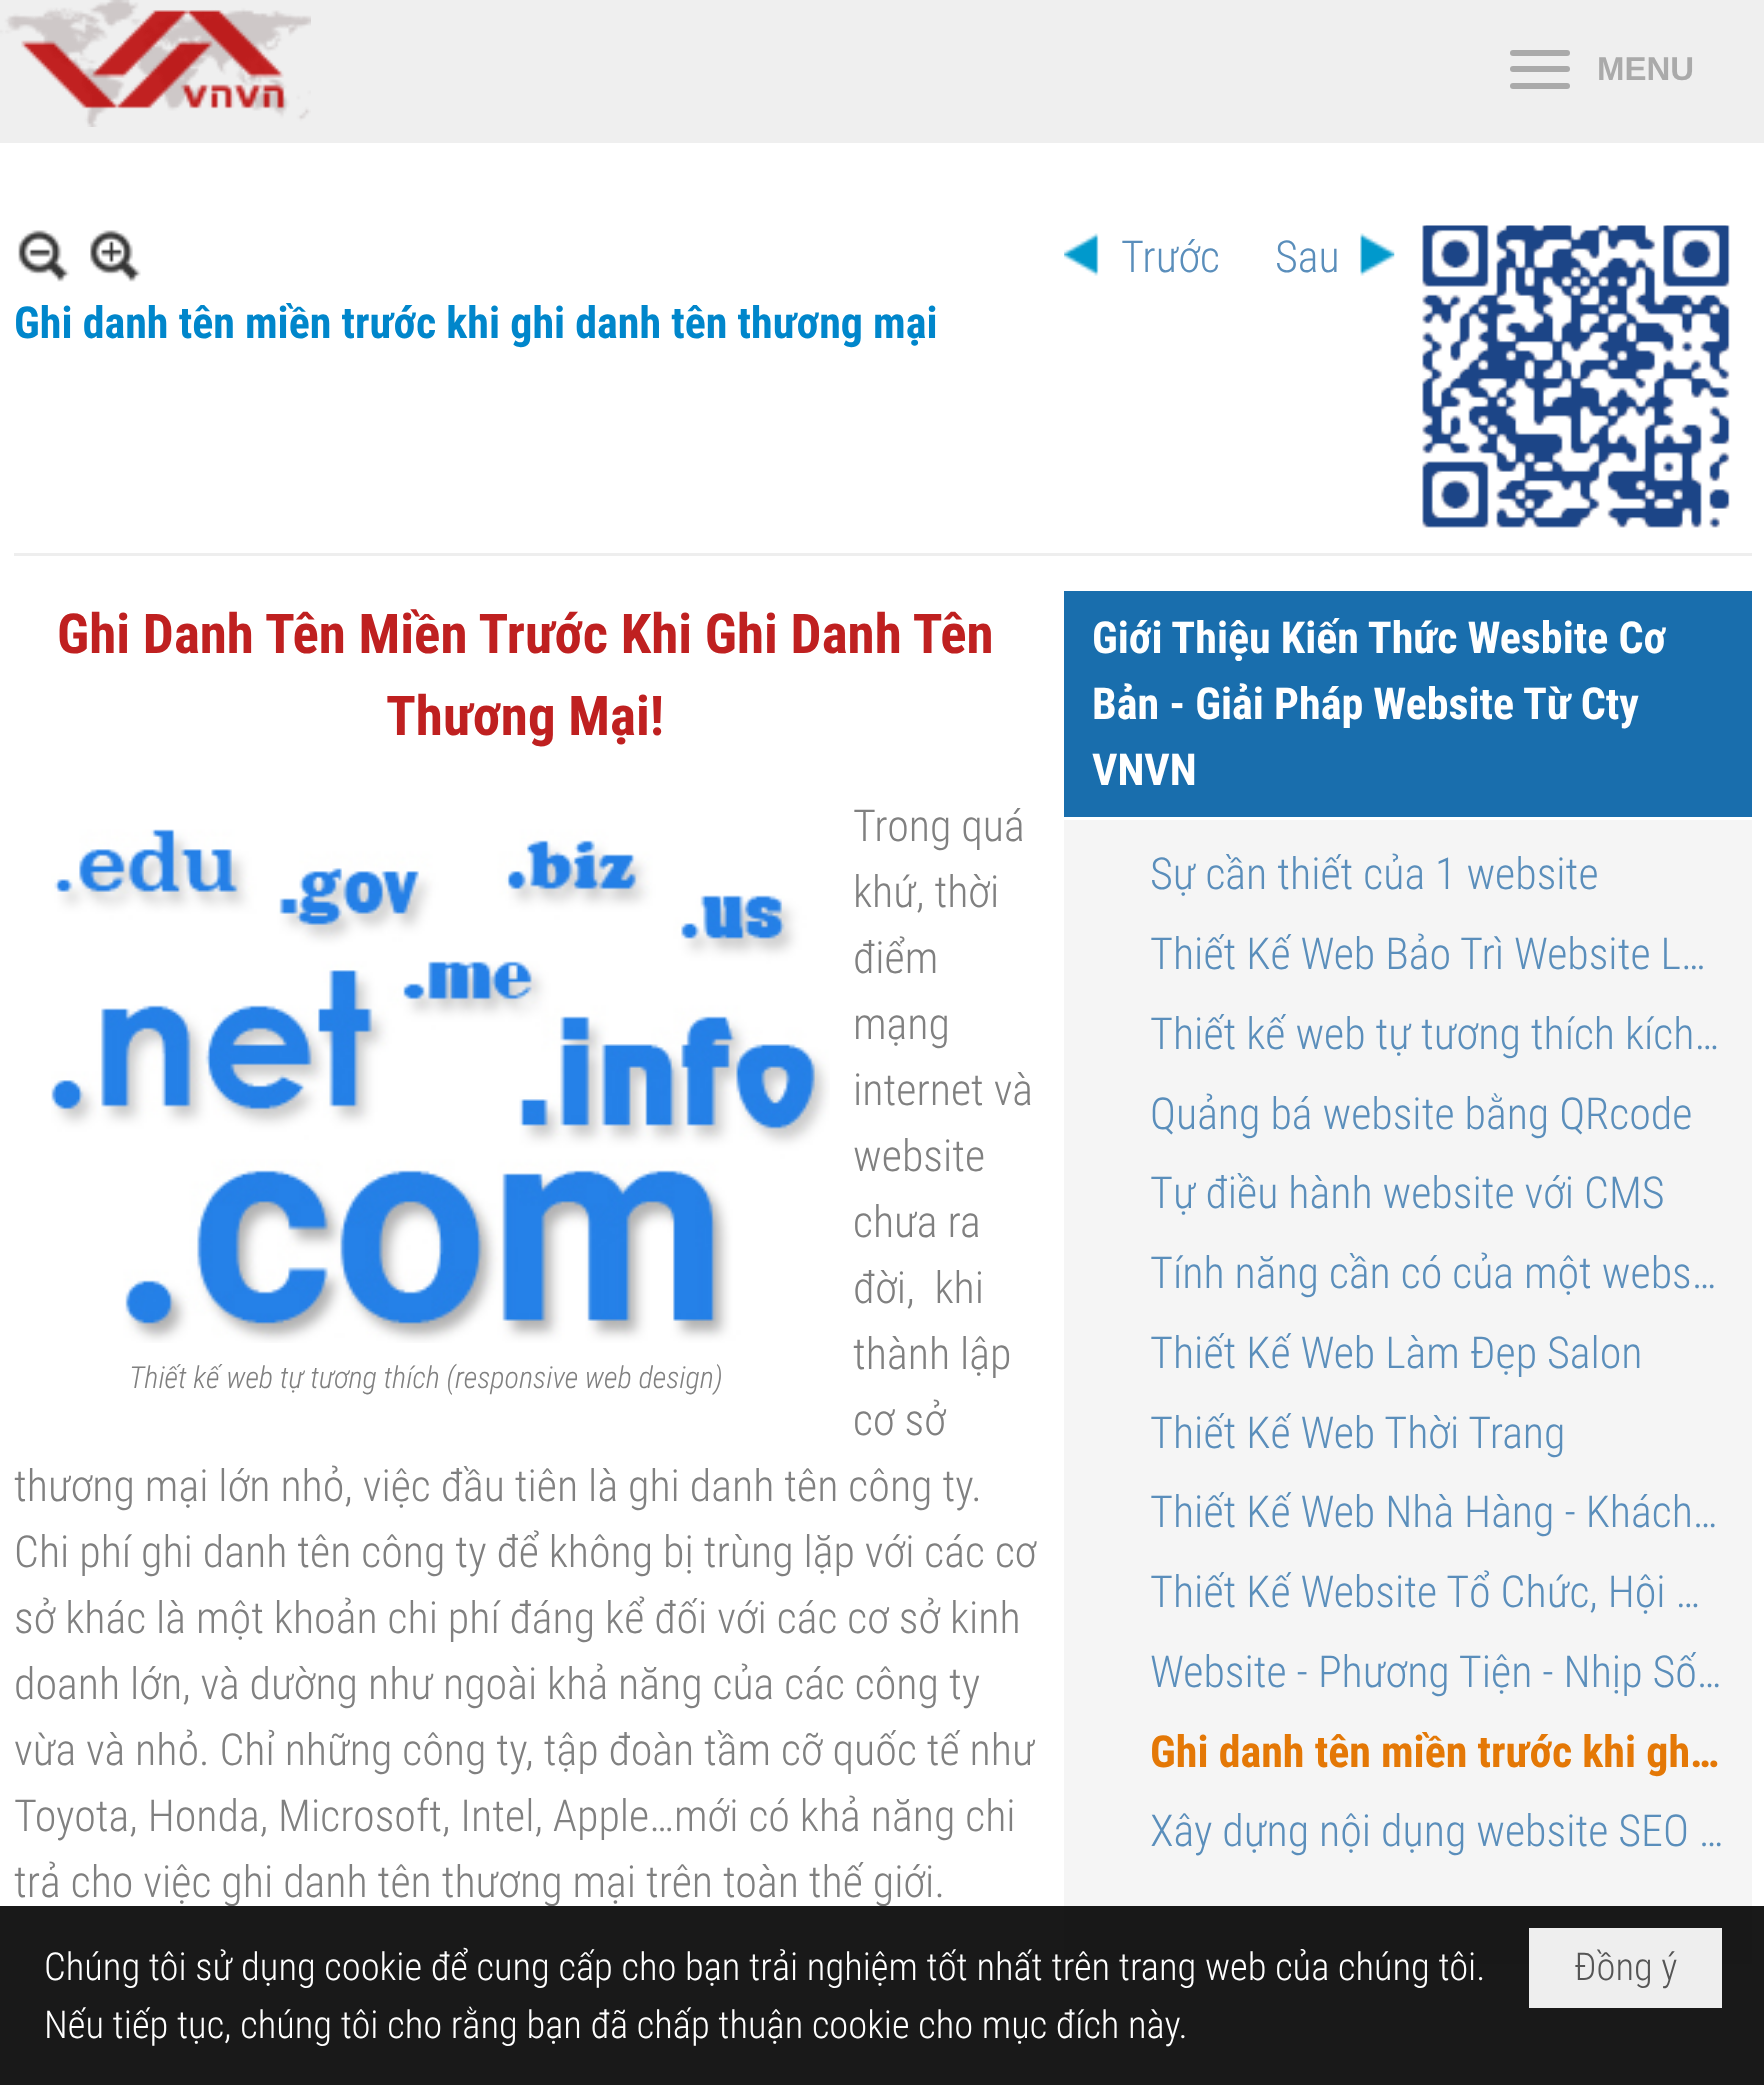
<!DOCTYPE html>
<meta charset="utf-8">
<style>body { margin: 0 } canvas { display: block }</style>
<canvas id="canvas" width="1764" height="2085"></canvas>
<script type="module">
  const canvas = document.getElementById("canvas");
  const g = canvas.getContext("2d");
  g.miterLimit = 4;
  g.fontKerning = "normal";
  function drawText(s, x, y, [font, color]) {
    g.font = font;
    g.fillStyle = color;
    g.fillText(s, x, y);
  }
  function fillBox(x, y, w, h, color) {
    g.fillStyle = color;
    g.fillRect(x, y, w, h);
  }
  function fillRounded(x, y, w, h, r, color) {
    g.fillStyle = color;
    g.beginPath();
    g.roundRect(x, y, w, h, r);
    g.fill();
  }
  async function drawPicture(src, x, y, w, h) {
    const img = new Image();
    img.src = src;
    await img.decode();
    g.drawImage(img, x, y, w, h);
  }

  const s1 = ["bold 33px Liberation Sans", "#AAAAAA"];
  const s2 = ["300 44px Roboto Condensed", "#5A8EBB"];
  const s3 = ["bold 44px Roboto Condensed", "#0086CB"];
  const s4 = ["bold 55px Roboto Condensed", "#BF2020"];
  const s5 = ["bold 44px Roboto Condensed", "#FFFFFF"];
  const s6 = ["bold 44px Roboto Condensed", "#E47806"];
  const s7 = ["300 44px Roboto Condensed", "#808080"];
  const s8 = ["italic 300 30.25px Roboto Condensed", "#808080"];
  const s9 = ["300 38.5px Roboto Condensed", "#FFFFFF"];
  const s10 = ["300 38.5px Roboto Condensed", "#555555"];

  fillBox(0, 0, 1764, 2085, "#FFFFFF");
  fillBox(0, 0, 1764, 143, "#EFEFEF");
  await drawPicture("pic1.png", 0, 0, 311, 127);
  fillRounded(1510, 50, 60, 6, 3, "#AAAAAA");
  fillRounded(1510, 66, 60, 6, 3, "#AAAAAA");
  drawText("MENU", 1597, 80, s1);
  fillRounded(1510, 83, 60, 6, 3, "#AAAAAA");
  fillBox(14, 553, 1738, 3, "#EEEEEE");
  await drawPicture("pic2.png", 18, 230, 52, 52);
  await drawPicture("pic3.png", 90, 230, 51, 52);
  await drawPicture("pic4.png", 1064, 233, 35, 43);
  drawText("Trước", 1121, 272, s2);
  await drawPicture("pic5.png", 1360, 233, 35, 43);
  drawText("Sau", 1275, 272, s2);
  await drawPicture("pic6.png", 1422, 225, 308, 303);
  drawText("Ghi danh tên miền trước khi ghi danh tên thương mại", 14, 338, s3);
  drawText("Ghi Danh Tên Miền Trước Khi Ghi Danh Tên", 57, 653, s4);
  drawText("Thương Mại!", 386, 735, s4);
  fillBox(1064, 591, 688, 226, "#196EAD");
  drawText("Giới Thiệu Kiến Thức Wesbite Cơ", 1092, 653, s5);
  drawText("Bản - Giải Pháp Website Từ Cty", 1092, 719, s5);
  drawText("VNVN", 1092, 785, s5);
  fillBox(1064, 820, 688, 1144, "#F5F5F5");
  drawText("Sự cần thiết của 1 website", 1150, 889, s2);
  drawText("Thiết Kế Web Bảo Trì Website L…", 1150, 969, s2);
  drawText("Thiết kế web tự tương thích kích…", 1150, 1049, s2);
  drawText("Quảng bá website bằng QRcode", 1150, 1129, s2);
  drawText("Tự điều hành website với CMS", 1150, 1208, s2);
  drawText("Tính năng cần có của một webs…", 1150, 1288, s2);
  drawText("Thiết Kế Web Làm Đẹp Salon", 1150, 1368, s2);
  drawText("Thiết Kế Web Thời Trang", 1150, 1448, s2);
  drawText("Thiết Kế Web Nhà Hàng - Khách…", 1150, 1527, s2);
  drawText("Thiết Kế Website Tổ Chức, Hội …", 1150, 1607, s2);
  drawText("Website - Phương Tiện - Nhịp Số…", 1150, 1687, s2);
  drawText("Ghi danh tên miền trước khi gh…", 1150, 1767, s6);
  drawText("Xây dựng nội dụng website SEO …", 1150, 1846, s2);
  drawText("Trong quá", 853, 841, s7);
  drawText("khứ, thời", 853, 907, s7);
  drawText("điểm", 853, 973, s7);
  drawText("mạng", 853, 1039, s7);
  drawText("internet và", 853, 1105, s7);
  drawText("website", 853, 1171, s7);
  drawText("chưa ra", 853, 1237, s7);
  drawText("đời,  khi", 853, 1303, s7);
  await drawPicture("pic7.png", 51, 829, 779, 514);
  drawText("Thiết kế web tự tương thích (responsive web design)", 129, 1388, s8);
  drawText("thành lập", 853, 1369, s7);
  drawText("cơ sở", 853, 1435, s7);
  drawText("thương mại lớn nhỏ, việc đầu tiên là ghi danh tên công ty.", 14, 1501, s7);
  drawText("Chi phí ghi danh tên công ty để không bị trùng lặp với các cơ", 14, 1567, s7);
  drawText("sở khác là một khoản chi phí đáng kể đối với các cơ sở kinh", 14, 1633, s7);
  drawText("doanh lớn, và dường như ngoài khả năng của các công ty", 14, 1699, s7);
  drawText("vừa và nhỏ. Chỉ những công ty, tập đoàn tầm cỡ quốc tế như", 14, 1765, s7);
  drawText("Toyota, Honda, Microsoft, Intel, Apple…mới có khả năng chi", 14, 1831, s7);
  drawText("trả cho việc ghi danh tên thương mại trên toàn thế giới.", 14, 1897, s7);
  fillBox(0, 1906, 1764, 179, "rgba(0, 0, 0, 0.9)");
  drawText("Chúng tôi sử dụng cookie để cung cấp cho bạn trải nghiệm tốt nhất trên trang web của chúng tôi.", 44, 1980, s9);
  drawText("Nếu tiếp tục, chúng tôi cho rằng bạn đã chấp thuận cookie cho mục đích này.", 44, 2038, s9);
  fillBox(1529, 1928, 193, 80, "#EEEEEE");
  drawText("Đồng ý", 1574, 1980, s10);
</script>
